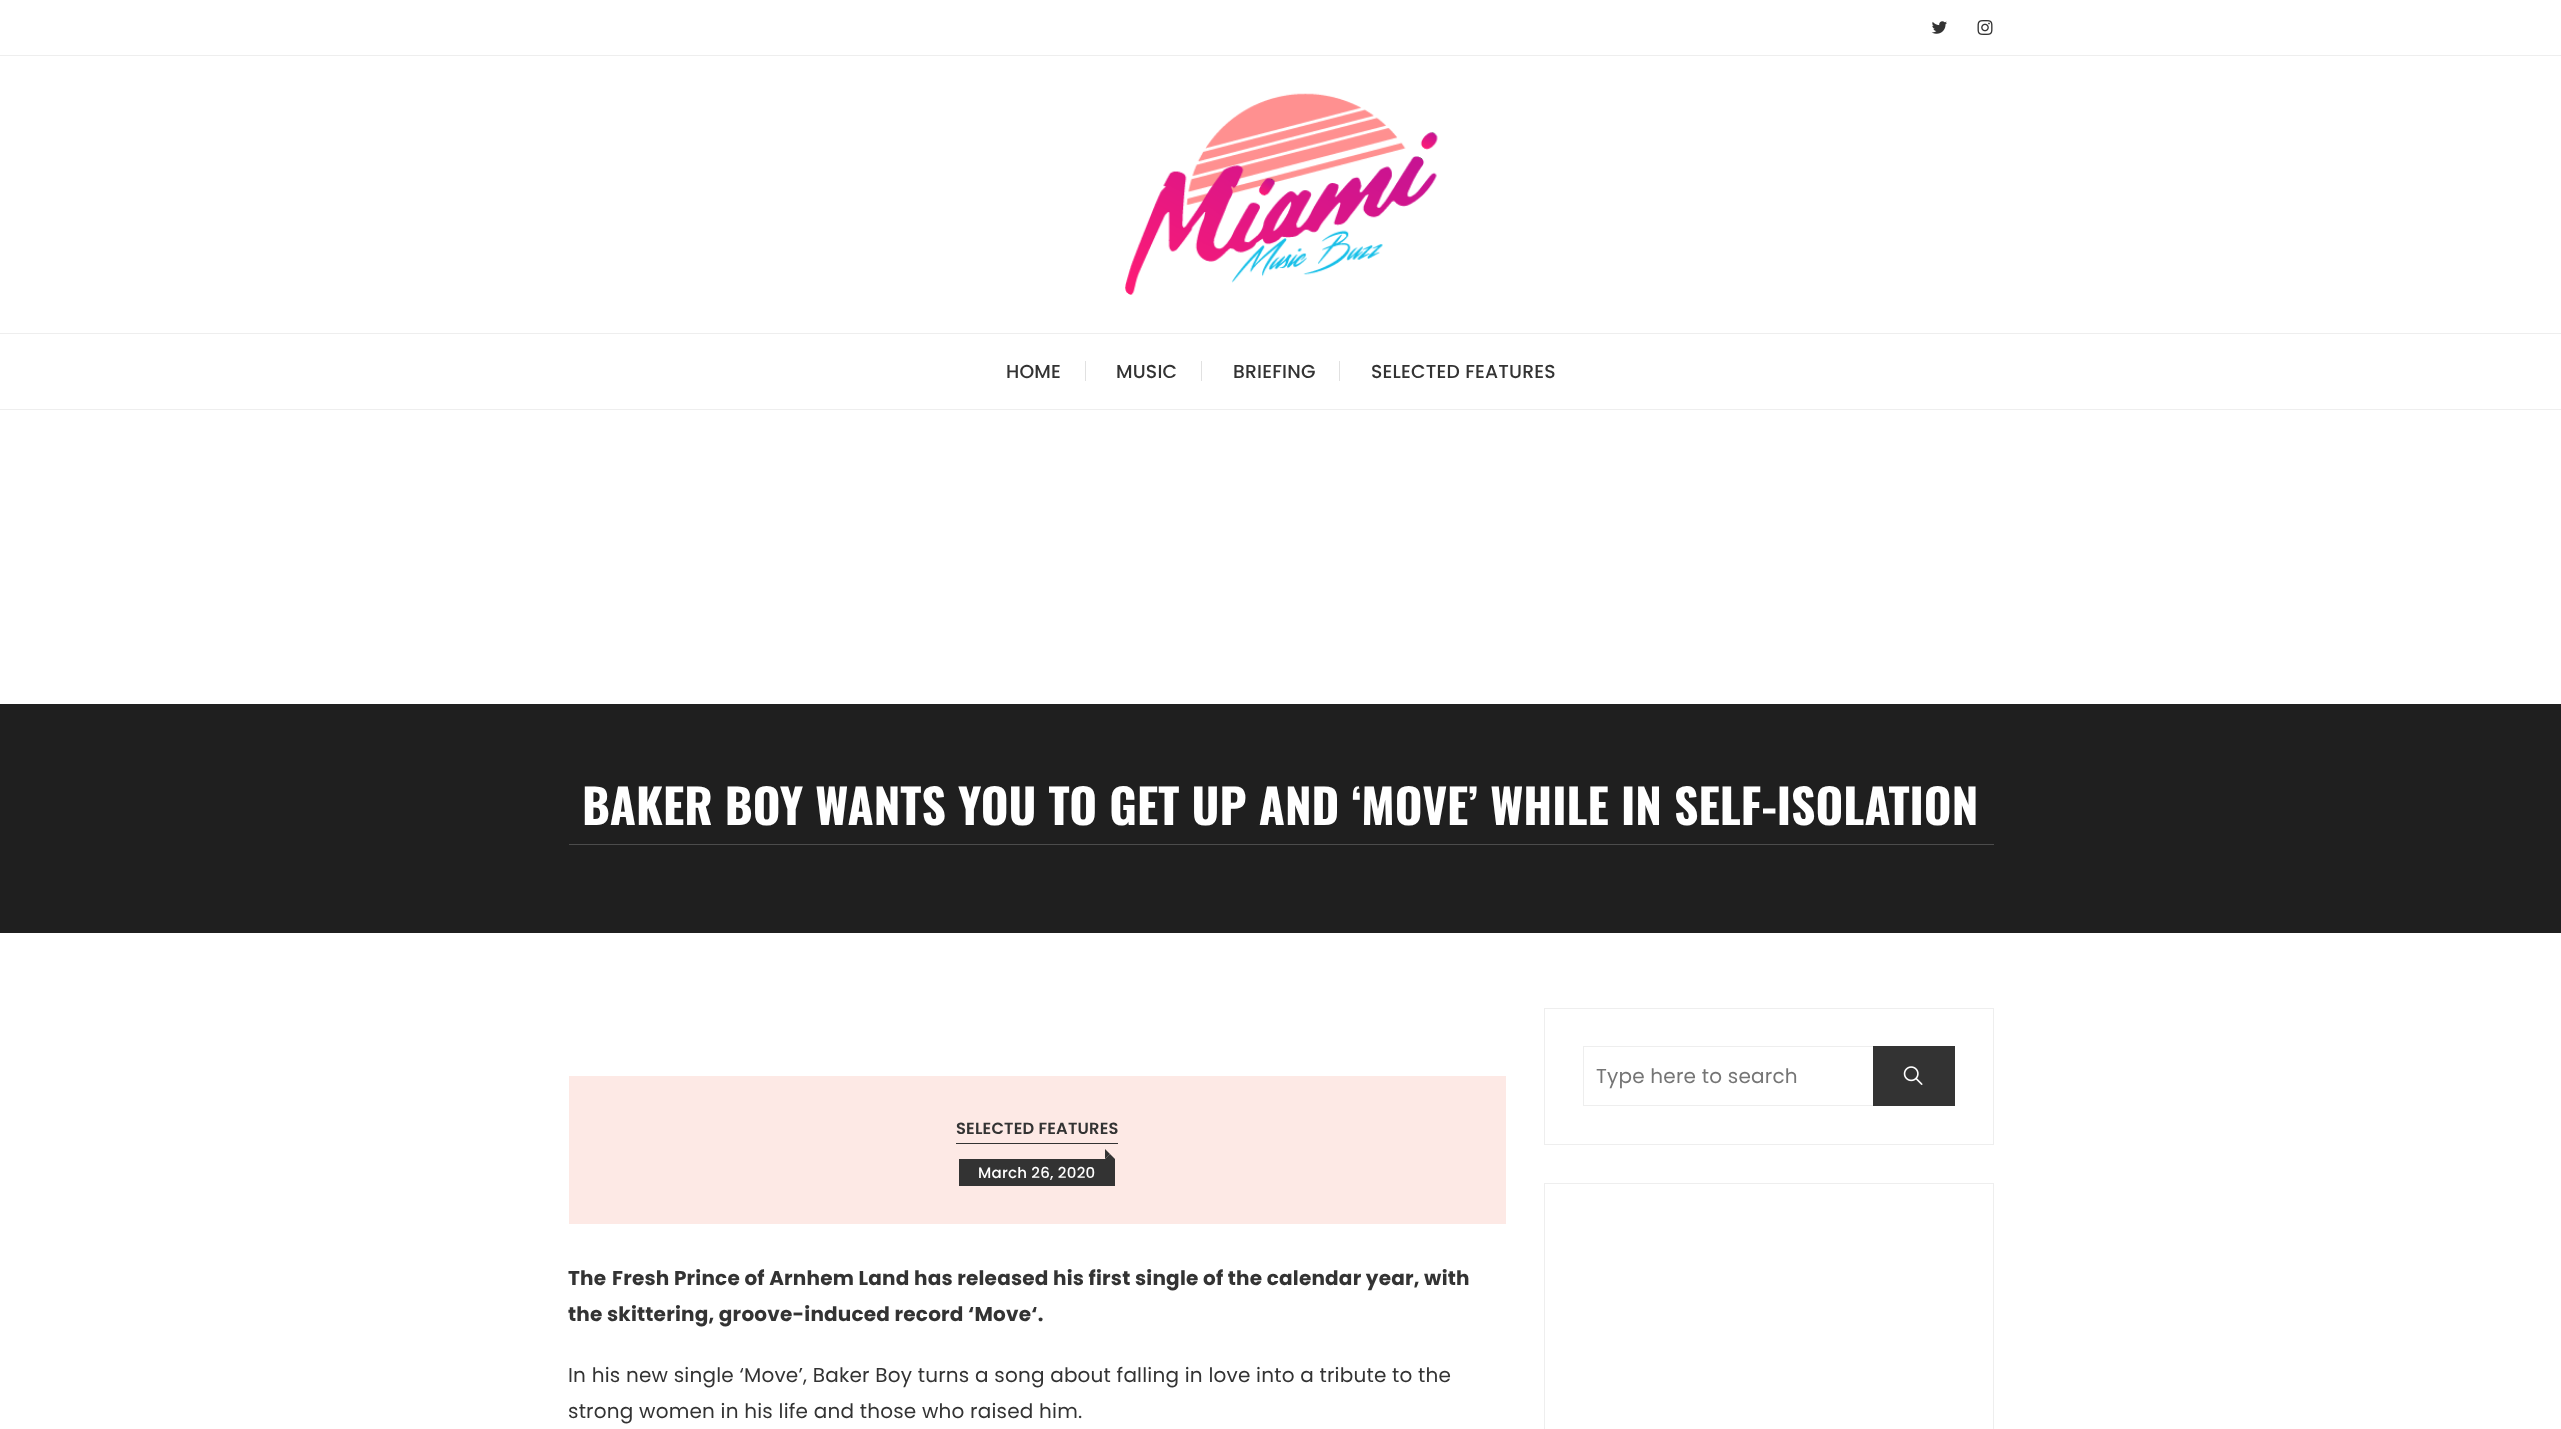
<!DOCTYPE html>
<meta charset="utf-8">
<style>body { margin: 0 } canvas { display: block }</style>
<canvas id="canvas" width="2561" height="1429"></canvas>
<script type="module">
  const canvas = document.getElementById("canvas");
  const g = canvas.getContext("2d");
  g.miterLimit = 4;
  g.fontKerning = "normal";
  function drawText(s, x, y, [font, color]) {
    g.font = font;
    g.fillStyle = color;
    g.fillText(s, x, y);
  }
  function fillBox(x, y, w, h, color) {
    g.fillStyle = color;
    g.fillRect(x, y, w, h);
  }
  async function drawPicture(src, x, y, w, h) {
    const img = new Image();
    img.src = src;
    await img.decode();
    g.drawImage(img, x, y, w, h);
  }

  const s1 = ["500 18.75px Poppins", "#333333"];
  const s2 = ["bold 47.5px Oswald", "#FFFFFF"];
  const s3 = ["20px Poppins", "#757575"];
  const s4 = ["600 16.25px Poppins", "#333333"];
  const s5 = ["500 15px Poppins", "#FFFFFF"];
  const s6 = ["bold 20px Poppins", "#333333"];
  const s7 = ["20px Poppins", "#333333"];

  fillBox(0, 0, 2561, 1429, "#FFFFFF");
  fillBox(0, 55, 2561, 1, "#EEEEEE");
  await drawPicture("pic1.png", 1931, 21, 16, 13);
  await drawPicture("pic2.png", 1977, 20, 16, 15);
  await drawPicture("pic3.png", 1125, 93, 313, 202);
  fillBox(0, 333, 2561, 1, "#EEEEEE");
  fillBox(0, 409, 2561, 1, "#EEEEEE");
  g.letterSpacing = "0.2px";
  drawText("HOME", 1006, 378, s1);
  fillBox(1085, 361, 1, 20, "#E1E1E1");
  drawText("MUSIC", 1116, 378, s1);
  fillBox(1201, 361, 1, 20, "#E1E1E1");
  drawText("BRIEFING", 1233, 378, s1);
  fillBox(1339, 361, 1, 20, "#E1E1E1");
  drawText("SELECTED FEATURES", 1371, 378, s1);
  fillBox(0, 704, 2561, 229, "#1F1F1F");
  fillBox(569, 844, 1425, 1, "#4C4C4C");
  g.letterSpacing = "0px";
  drawText("BAKER BOY WANTS YOU TO GET UP AND ‘MOVE’ WHILE IN SELF-ISOLATION", 582, 825, s2);
  g.strokeStyle = "#EEEEEE";
  g.strokeRect(1544.5, 1008.5, 449, 136);
  g.strokeRect(1583.5, 1046.5, 371, 59);
  g.letterSpacing = "0.2px";
  drawText("Type here to search", 1596, 1083, s3);
  fillBox(1873, 1046, 82, 60, "#333333");
  await drawPicture("pic4.png", 1903, 1066, 20, 19);
  g.strokeRect(1544.5, 1183.5, 449, 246);
  fillBox(569, 1076, 937, 148, "#FDE9E5");
  fillBox(956, 1143, 162, 1, "#333333");
  drawText("SELECTED FEATURES", 956, 1134, s4);
  fillBox(959, 1159, 156, 27, "#333333");
  g.beginPath();
  g.moveTo(1115, 1159);
  g.lineTo(1105, 1159);
  g.lineTo(1110, 1154);
  g.closePath();
  g.fill();
  g.beginPath();
  g.moveTo(1105, 1159);
  g.lineTo(1105, 1149);
  g.lineTo(1110, 1154);
  g.closePath();
  g.fill();
  g.letterSpacing = "0.25px";
  drawText("March 26, 2020", 978, 1178, s5);
  g.letterSpacing = "0.2px";
  drawText("The", 568, 1285, s6);
  drawText("Fresh Prince of Arnhem Land has released his first single of the calendar year, with", 612, 1285, s6);
  drawText("the skittering, groove-induced record ‘Move‘.", 568, 1321, s6);
  drawText("In his new single ‘Move’, Baker Boy turns a song about falling in love into a tribute to the", 568, 1382, s7);
  drawText("strong women in his life and those who raised him.", 568, 1418, s7);
</script>
